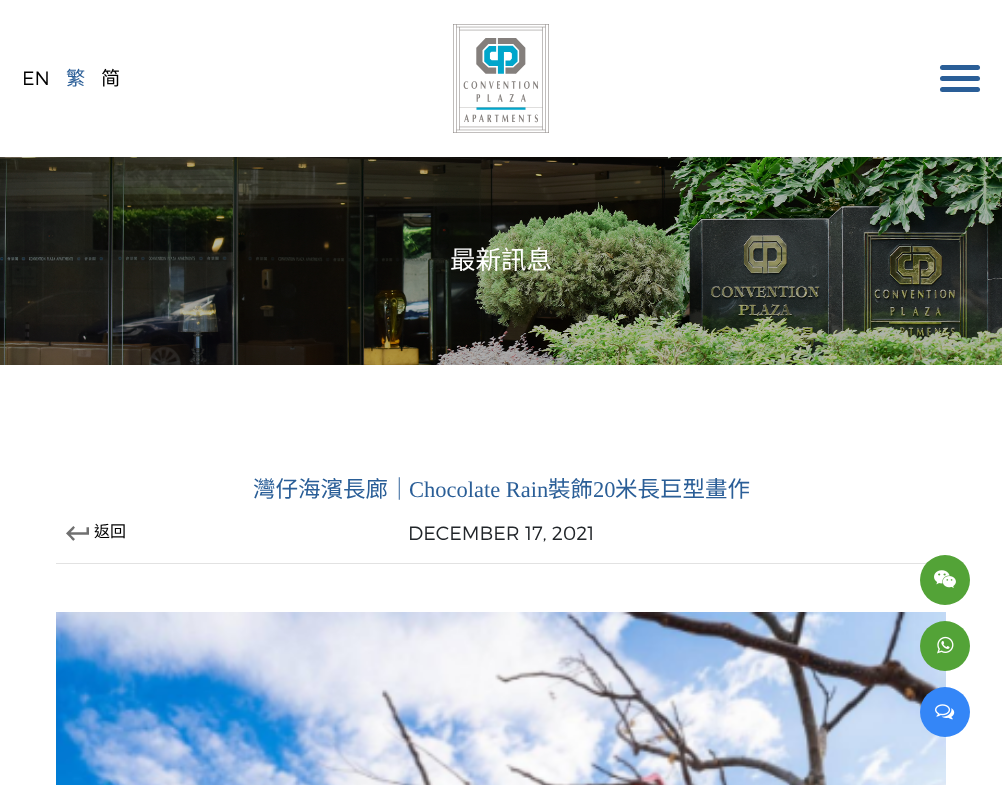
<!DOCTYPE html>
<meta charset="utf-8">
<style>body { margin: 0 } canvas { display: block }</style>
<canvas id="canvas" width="1002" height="785"></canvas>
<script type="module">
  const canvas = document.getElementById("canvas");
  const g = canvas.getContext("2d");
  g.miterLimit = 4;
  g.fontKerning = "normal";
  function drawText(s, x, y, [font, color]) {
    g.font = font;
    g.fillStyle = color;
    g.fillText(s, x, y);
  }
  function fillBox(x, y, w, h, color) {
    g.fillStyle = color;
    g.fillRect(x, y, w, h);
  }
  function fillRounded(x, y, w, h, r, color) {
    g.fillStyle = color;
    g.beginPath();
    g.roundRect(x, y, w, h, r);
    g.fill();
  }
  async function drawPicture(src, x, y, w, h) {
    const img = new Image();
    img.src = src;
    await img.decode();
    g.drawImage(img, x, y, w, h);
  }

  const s1 = ["300 19.25px Montserrat", "#000000"];
  const s2 = ["19.25px Noto Sans CJK HK", "#2A5E97"];
  const s3 = ["19.25px Noto Sans CJK HK", "#000000"];
  const s4 = ["25.5px Noto Sans CJK HK", "#FFFFFF"];
  const s5 = ["22.5px Noto Sans CJK HK", "#2A5E97"];
  const s6 = ["22.5px Liberation Serif", "#2A5E97"];
  const s7 = ["16px Noto Sans CJK HK", "#000000"];
  const s8 = ["300 19.25px Montserrat", "#22262A"];

  fillBox(0, 0, 1002, 785, "#FFFFFF");
  drawText("EN", 22, 85, s1);
  drawText("繁", 66, 85, s2);
  drawText("简", 101, 85, s3);
  await drawPicture("pic1.png", 453, 24, 96, 109);
  fillRounded(940, 65, 40, 5, 2.5, "#2A5E97");
  fillRounded(940, 76, 40, 5, 2.5, "#2A5E97");
  fillRounded(940, 87, 40, 5, 2.5, "#2A5E97");
  await drawPicture("pic2.png", 0, 157, 1002, 208);
  drawText("最新訊息", 450, 269, s4);
  drawText("灣仔海濱長廊｜", 253, 497, s5);
  drawText("Chocolate Rain", 409, 497, s6);
  drawText("裝飾", 548, 497, s5);
  drawText("20", 593, 497, s6);
  drawText("米長巨型畫作", 615, 497, s5);
  fillBox(56, 563, 871, 1, "#E2E2E2");
  await drawPicture("pic3.png", 66, 526, 23, 15);
  drawText("返回", 94, 537, s7);
  drawText("DECEMBER 17, 2021", 408, 540, s8);
  await drawPicture("pic4.png", 56, 612, 890, 173);
  g.fillStyle = "#53A337";
  g.beginPath();
  g.arc(945, 580, 25, 0, Math.PI * 2);
  g.fill();
  await drawPicture("pic5.png", 934, 570, 22, 18);
  g.beginPath();
  g.arc(945, 646, 25, 0, Math.PI * 2);
  g.fill();
  await drawPicture("pic6.png", 937, 636, 17, 18);
  g.fillStyle = "#3486F7";
  g.beginPath();
  g.arc(945, 712, 25, 0, Math.PI * 2);
  g.fill();
  await drawPicture("pic7.png", 935, 704, 20, 16);
</script>
